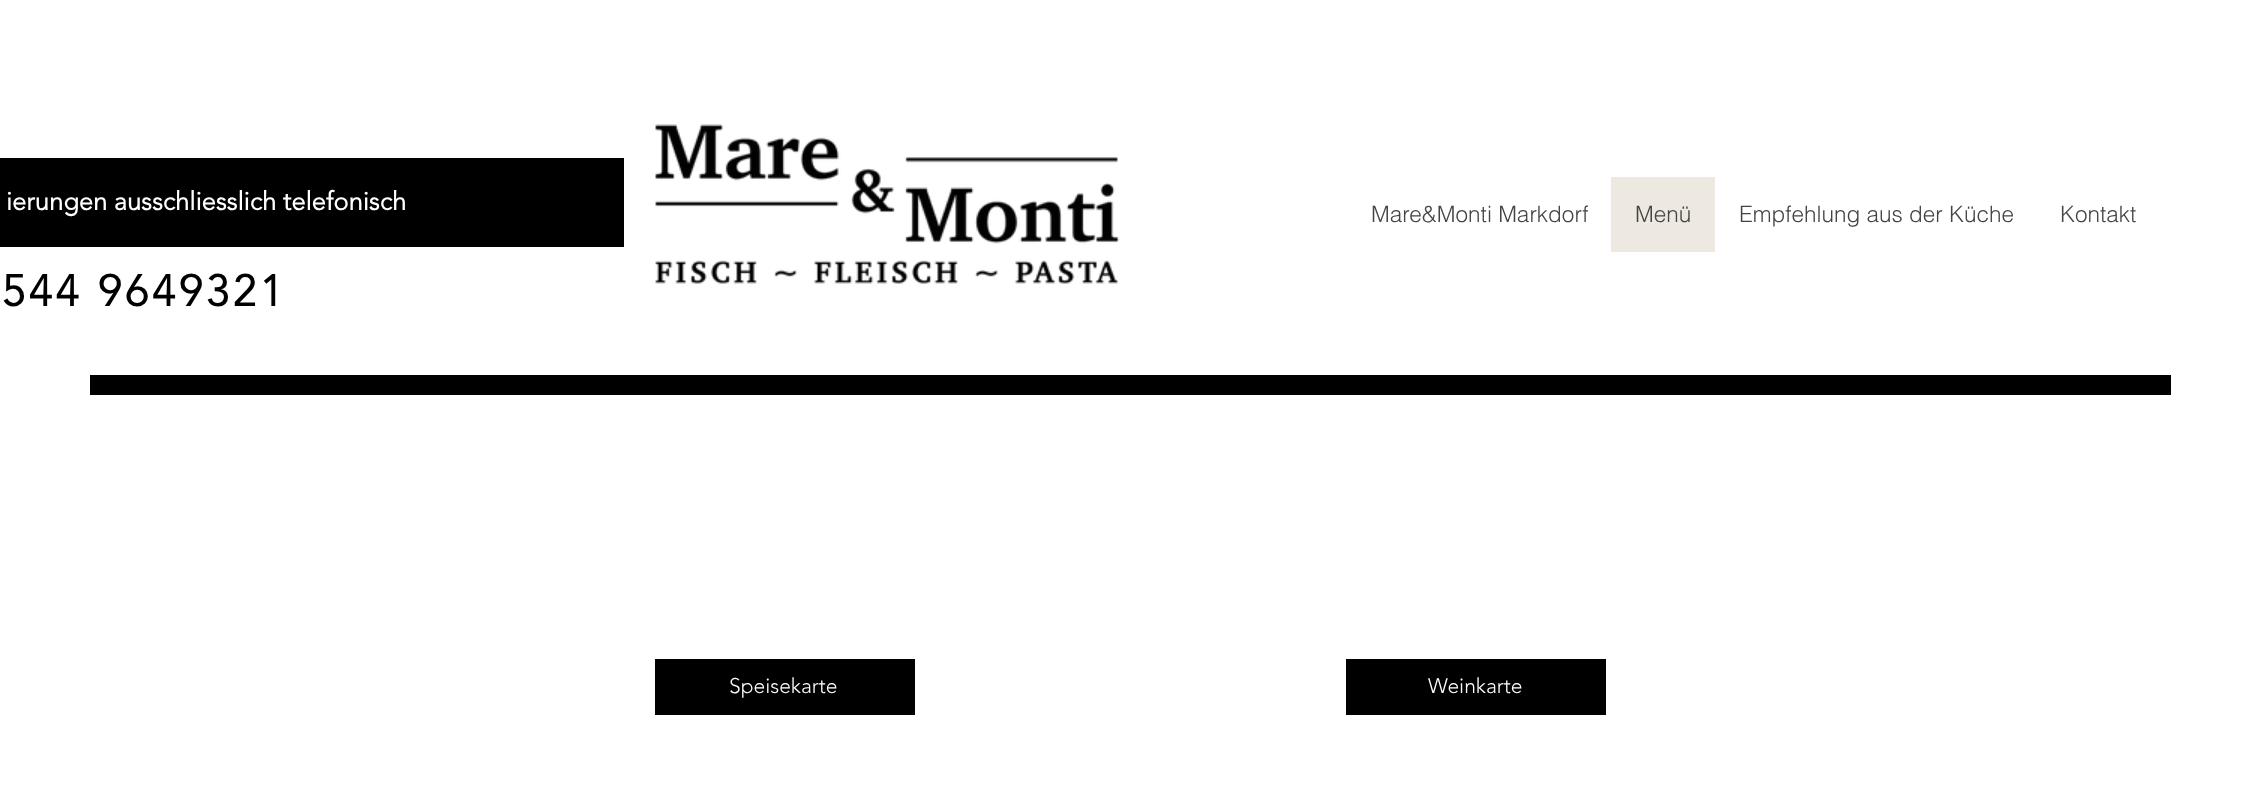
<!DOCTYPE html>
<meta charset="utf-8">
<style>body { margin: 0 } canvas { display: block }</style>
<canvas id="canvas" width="2260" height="793"></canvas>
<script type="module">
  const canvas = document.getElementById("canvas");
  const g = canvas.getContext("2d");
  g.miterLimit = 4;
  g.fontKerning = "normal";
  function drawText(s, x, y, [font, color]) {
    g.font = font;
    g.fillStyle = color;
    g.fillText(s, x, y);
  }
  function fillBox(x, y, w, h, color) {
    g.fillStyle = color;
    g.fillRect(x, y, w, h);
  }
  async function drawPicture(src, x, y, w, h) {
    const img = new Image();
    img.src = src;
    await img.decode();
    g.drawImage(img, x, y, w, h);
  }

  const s1 = ["bold 25.5px 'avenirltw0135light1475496'", "#FFFFFF"];
  const s2 = ["300 22.5px helvetica", "#444444"];
  const s3 = ["bold 43.5px 'avenirltw0135light1475496'", "#000000"];
  const s4 = ["300 21px 'avenirltw0135light1475496'", "#FFFFFF"];

  fillBox(0, 0, 2260, 793, "#FFFFFF");
  fillBox(0, 158, 624, 89, "#000000");
  drawText("ierungen ausschliesslich telefonisch", 6, 210, s1);
  await drawPicture("pic1.png", 655, 124, 465, 160);
  drawText("Mare&Monti Markdorf", 1371, 222, s2);
  fillBox(1611, 177, 104, 75, "#EDE9E1");
  drawText("Menü", 1635, 222, s2);
  drawText("Empfehlung aus der Küche", 1739, 222, s2);
  drawText("Kontakt", 2060, 222, s2);
  g.letterSpacing = "4.3px";
  drawText("544 9649321", 2, 306, s3);
  fillBox(90, 375, 2081, 20, "#000000");
  fillBox(655, 659, 260, 56, "#000000");
  g.letterSpacing = "0px";
  drawText("Speisekarte", 729, 693, s4);
  fillBox(1346, 659, 260, 56, "#000000");
  drawText("Weinkarte", 1428, 693, s4);
</script>
